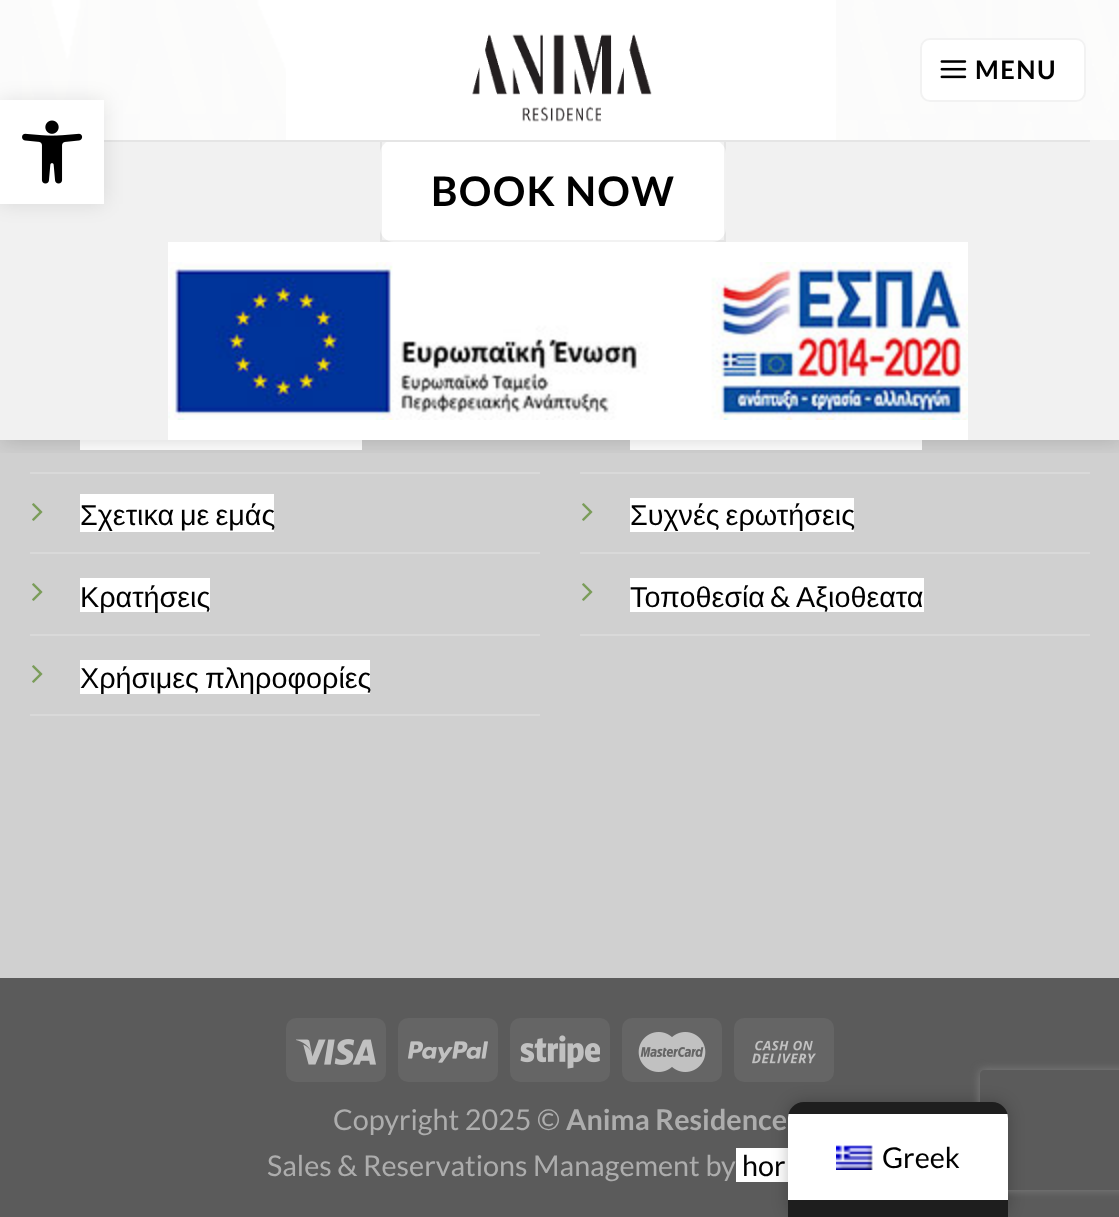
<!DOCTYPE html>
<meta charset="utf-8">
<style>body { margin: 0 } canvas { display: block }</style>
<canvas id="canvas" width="1119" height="1217"></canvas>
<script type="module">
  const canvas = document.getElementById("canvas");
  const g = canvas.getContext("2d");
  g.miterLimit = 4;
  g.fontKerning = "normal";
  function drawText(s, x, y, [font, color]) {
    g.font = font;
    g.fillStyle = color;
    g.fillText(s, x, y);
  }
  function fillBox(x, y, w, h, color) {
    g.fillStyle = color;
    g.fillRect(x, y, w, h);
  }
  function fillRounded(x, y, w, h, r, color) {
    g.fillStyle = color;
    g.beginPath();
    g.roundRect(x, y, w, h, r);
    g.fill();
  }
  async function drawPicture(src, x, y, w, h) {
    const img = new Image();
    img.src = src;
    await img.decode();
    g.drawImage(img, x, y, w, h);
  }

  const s1 = ["bold 25.5px Lato", "#000000"];
  const s2 = ["bold 40.75px Lato", "#000000"];
  const s3 = ["28.75px Liberation Sans", "#000000"];
  const s4 = ["28.75px Lato", "#000000"];
  const s5 = ["28.75px Lato", "#ADADAD"];
  const s6 = ["bold 28.75px Lato", "#ADADAD"];

  fillBox(0, 0, 1119, 1217, "#5B5B5B");
  fillBox(0, 0, 1119, 978, "#D0D0D0");
  fillBox(30, 472, 510, 2, "#D9D9D9");
  fillBox(80, 440, 282, 10, "#FFFFFF");
  fillBox(580, 472, 510, 2, "#D9D9D9");
  fillBox(630, 440, 292, 10, "#FFFFFF");
  g.save();
  g.beginPath();
  g.rect(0, 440, 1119, 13);
  g.clip();
  g.fillStyle = "rgba(0, 0, 0, 0.15)";
  g.filter = "blur(10px)";
  g.beginPath();
  g.rect(2, 2, 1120, 440);
  g.fill();
  g.filter = "none";
  g.restore();
  await drawPicture("pic2.png", 21, 0, 1098, 140);
  fillBox(0, 0, 1119, 140, "rgba(255, 255, 255, 0.9)");
  fillBox(0, 140, 1119, 300, "#F1F1F1");
  fillRounded(380, 140, 346, 102, 14, "#FFFFFF");
  g.strokeStyle = "rgba(0, 0, 0, 0.05)";
  g.lineWidth = 2;
  g.strokeRect(381, 141, 344, 100);
  fillBox(104, 140, 986, 2, "#E5E5E5");
  g.fillStyle = "rgba(0, 0, 0, 0.1)";
  g.filter = "blur(10px)";
  g.beginPath();
  g.rect(0, 100, 104, 104);
  g.fill();
  g.filter = "none";
  fillBox(0, 100, 104, 104, "#FFFFFF");
  await drawPicture("pic1.png", 22, 120, 61, 64);
  fillBox(286, 0, 550, 140, "#FFFFFF");
  await drawPicture("pic3.png", 472, 34, 180, 88);
  g.beginPath();
  g.roundRect(921, 39, 164, 62, 9);
  g.fill();
  g.strokeStyle = "#F2F2F2";
  g.stroke();
  await drawPicture("pic4.png", 940, 60, 27, 19);
  g.letterSpacing = "1.5px";
  drawText("MENU", 975, 79, s1);
  g.letterSpacing = "1.25px";
  drawText("BOOK NOW", 431, 206, s2);
  fillBox(168, 242, 800, 198, "#FFFFFF");
  await drawPicture("pic5.png", 168, 262, 800, 158);
  fillBox(30, 552, 510, 2, "#D9D9D9");
  await drawPicture("pic6.png", 32, 503, 11, 18);
  fillBox(80, 494, 194, 38, "#FFFFFF");
  g.letterSpacing = "0px";
  g.wordSpacing = "-2px";
  drawText("Σχετικα με εμάς", 80, 525, s3);
  fillBox(30, 634, 510, 2, "#D9D9D9");
  await drawPicture("pic6.png", 32, 583, 11, 18);
  fillBox(80, 578, 130, 34, "#FFFFFF");
  g.wordSpacing = "0px";
  drawText("Κρατήσεις", 80, 607, s3);
  fillBox(30, 714, 510, 2, "#D9D9D9");
  await drawPicture("pic6.png", 32, 665, 11, 18);
  fillBox(80, 660, 290, 34, "#FFFFFF");
  g.wordSpacing = "-2px";
  drawText("Χρήσιμες πληροφορίες", 80, 688, s3);
  fillBox(580, 552, 510, 2, "#D9D9D9");
  await drawPicture("pic6.png", 582, 503, 11, 18);
  fillBox(630, 498, 224, 34, "#FFFFFF");
  drawText("Συχνές ερωτήσεις", 630, 525, s3);
  fillBox(580, 634, 510, 2, "#D9D9D9");
  await drawPicture("pic6.png", 582, 583, 11, 18);
  fillBox(630, 578, 294, 34, "#FFFFFF");
  g.wordSpacing = "0px";
  drawText("Τοποθεσία", 630, 607, s3);
  drawText("&", 770, 607, s4);
  drawText("Αξιοθεατα", 796, 607, s3);
  fillRounded(286, 1018, 100, 64, 10, "#656565");
  await drawPicture("pic7.png", 296, 1039, 80, 26);
  fillRounded(398, 1018, 100, 64, 10, "#656565");
  await drawPicture("pic8.png", 408, 1041, 80, 22);
  fillRounded(510, 1018, 100, 64, 10, "#656565");
  await drawPicture("pic9.png", 520, 1035, 80, 34);
  fillRounded(622, 1018, 100, 64, 10, "#656565");
  await drawPicture("pic10.png", 638, 1032, 68, 40);
  fillRounded(734, 1018, 100, 64, 10, "#656565");
  await drawPicture("pic11.png", 752, 1040, 64, 24);
  drawText("Copyright 2025 ©", 333, 1130, s5);
  drawText("Anima Residence", 566, 1130, s6);
  drawText("Sales & Reservations Management by", 267, 1176, s5);
  fillBox(736, 1148, 52, 34, "#FFFFFF");
  drawText("hor", 742, 1176, s4);
  g.fillStyle = "rgba(0, 0, 0, 0.25)";
  g.filter = "blur(8px)";
  g.beginPath();
  g.roundRect(788, 1102, 220, 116, 16);
  g.fill();
  g.filter = "none";
  g.save();
  g.beginPath();
  g.moveTo(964, 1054);
  g.lineTo(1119, 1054);
  g.lineTo(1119, 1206);
  g.lineTo(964, 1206);
  g.closePath();
  g.moveTo(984, 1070);
  g.lineTo(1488, 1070);
  g.bezierCurveTo(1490, 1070, 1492, 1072, 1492, 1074);
  g.lineTo(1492, 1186);
  g.bezierCurveTo(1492, 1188, 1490, 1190, 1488, 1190);
  g.lineTo(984, 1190);
  g.bezierCurveTo(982, 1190, 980, 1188, 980, 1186);
  g.lineTo(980, 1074);
  g.bezierCurveTo(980, 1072, 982, 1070, 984, 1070);
  g.closePath();
  g.clip("evenodd");
  g.fillStyle = "#808080";
  g.filter = "blur(5px)";
  g.beginPath();
  g.roundRect(980, 1070, 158, 120, 4);
  g.fill();
  g.filter = "none";
  g.restore();
  g.fillStyle = "#1E1E1E";
  g.beginPath();
  g.moveTo(804, 1102);
  g.lineTo(992, 1102);
  g.bezierCurveTo(1001, 1102, 1008, 1109, 1008, 1118);
  g.lineTo(1008, 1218);
  g.lineTo(788, 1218);
  g.lineTo(788, 1118);
  g.bezierCurveTo(788, 1109, 795, 1102, 804, 1102);
  g.closePath();
  g.fill();
  g.save();
  g.beginPath();
  g.moveTo(804, 1102);
  g.lineTo(992, 1102);
  g.bezierCurveTo(1001, 1102, 1008, 1109, 1008, 1118);
  g.lineTo(1008, 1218);
  g.lineTo(788, 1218);
  g.lineTo(788, 1118);
  g.bezierCurveTo(788, 1109, 795, 1102, 804, 1102);
  g.closePath();
  g.clip();
  fillBox(788, 1114, 220, 86, "#FFFFFF");
  g.restore();
  await drawPicture("pic12.png", 836, 1145, 37, 25);
  drawText("Greek", 882, 1168, s4);
</script>
